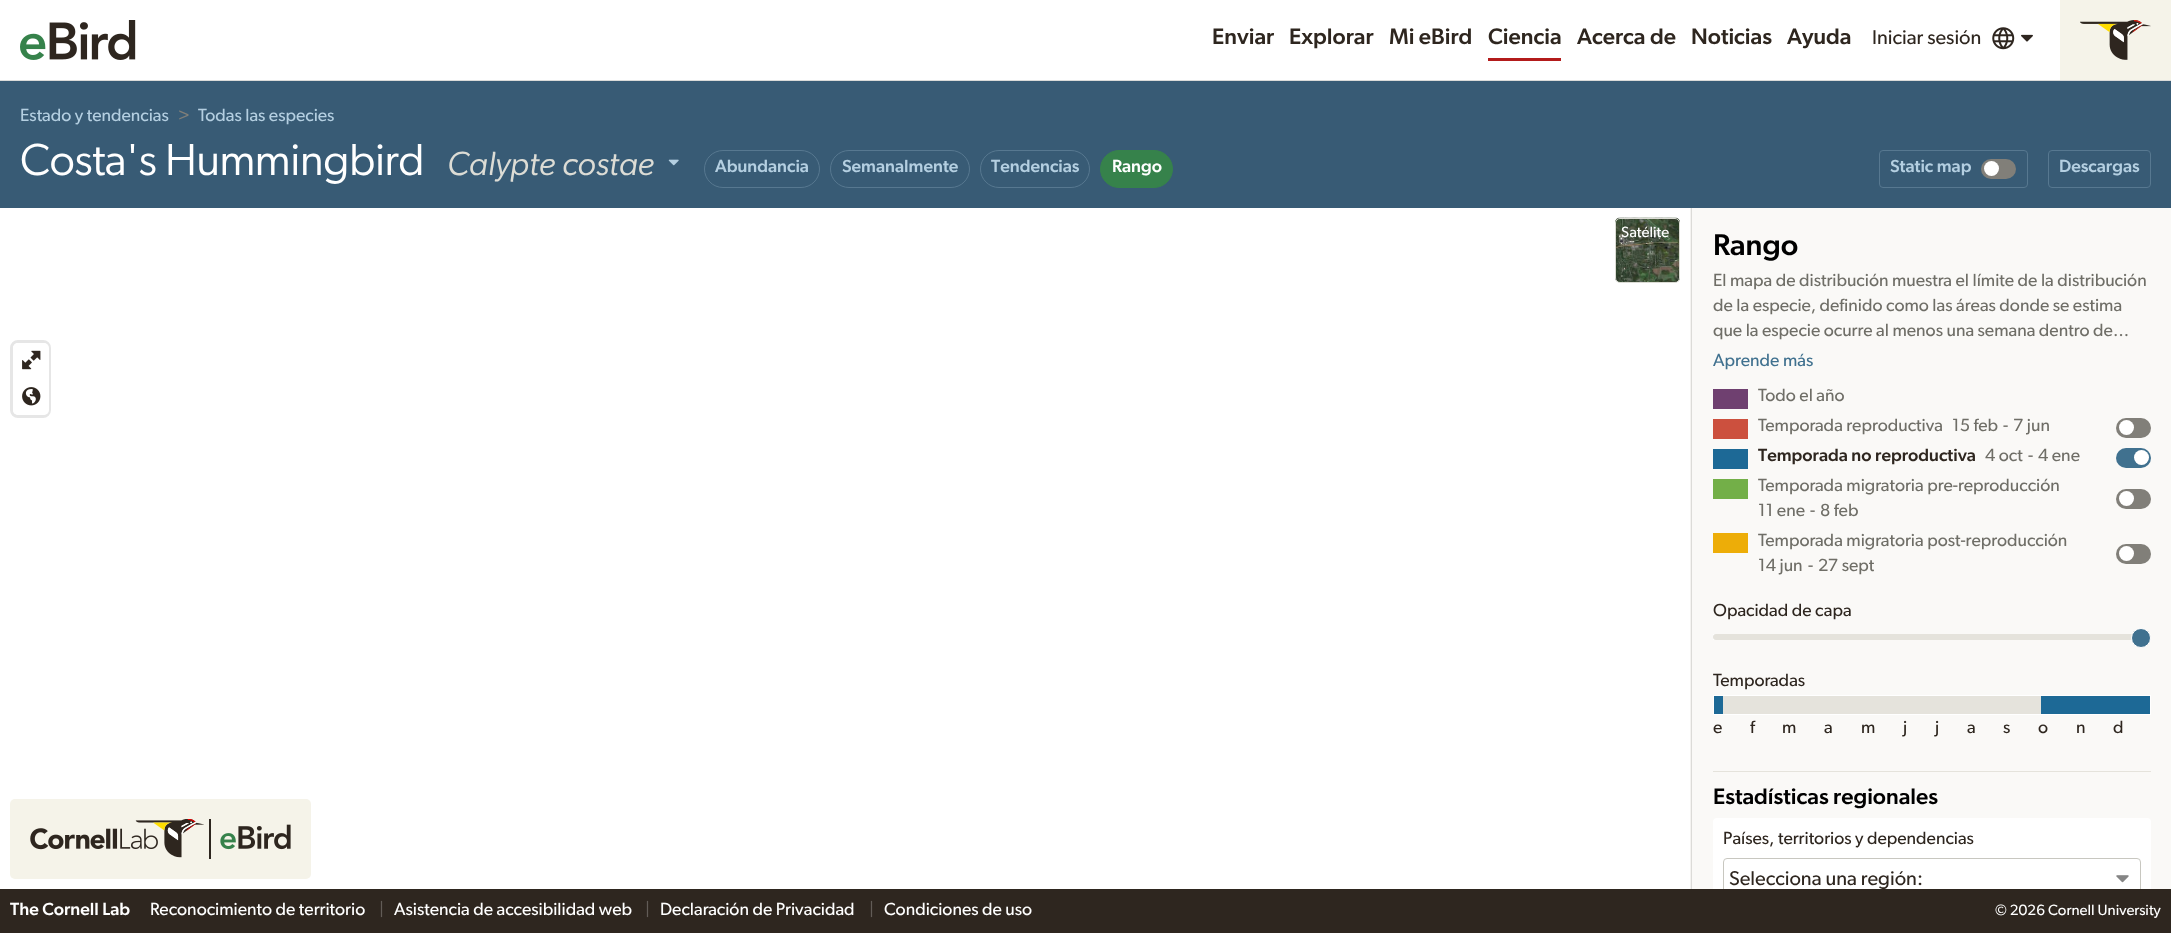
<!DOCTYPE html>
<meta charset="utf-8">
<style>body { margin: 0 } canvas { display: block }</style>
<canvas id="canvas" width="2171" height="933"></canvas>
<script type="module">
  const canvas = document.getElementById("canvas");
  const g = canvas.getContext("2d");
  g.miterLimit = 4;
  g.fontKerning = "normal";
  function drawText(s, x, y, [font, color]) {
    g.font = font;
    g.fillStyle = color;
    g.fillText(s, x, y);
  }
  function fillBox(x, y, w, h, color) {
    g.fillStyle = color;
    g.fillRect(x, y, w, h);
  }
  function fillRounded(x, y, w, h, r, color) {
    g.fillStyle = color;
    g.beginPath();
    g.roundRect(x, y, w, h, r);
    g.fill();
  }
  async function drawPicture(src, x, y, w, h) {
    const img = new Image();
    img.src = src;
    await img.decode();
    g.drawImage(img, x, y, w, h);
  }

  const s1 = ["500 22.5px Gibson", "#2E261F"];
  const s2 = ["20px Gibson", "#2E261F"];
  const s3 = ["17.6px Gibson", "#B4CFE1"];
  const s4 = ["17.6px Gibson", "#817F79"];
  const s5 = ["45px 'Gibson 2'", "#FFFFFF"];
  const s6 = ["italic 33.75px Gibson", "#DCDCD5"];
  const s7 = ["500 17.6px Gibson", "#B4CFE1"];
  const s8 = ["500 17.6px Gibson", "#FFFFFF"];
  const s9 = ["15px Gibson", "#FFFFFF"];
  const s10 = ["500 30px Gibson", "#000000"];
  const s11 = ["17.6px Gibson", "#6F6E67"];
  const s12 = ["17.6px Gibson", "#40718F"];
  const s13 = ["500 17.6px Gibson", "#2E261F"];
  const s14 = ["17.6px Gibson", "#2E261F"];
  const s15 = ["500 22.5px Gibson", "#000000"];
  const s16 = ["17.6px Gibson", "#FFFFFF"];
  const s17 = ["17.6px Gibson", "#625C57"];

  fillBox(0, 0, 2171, 933, "#FFFFFF");
  fillBox(0, 80, 2171, 1, "#DBDBD9");
  await drawPicture("pic1.png", 20, 20, 116, 40);
  drawText("Enviar", 1212, 44, s1);
  drawText("Explorar", 1289, 44, s1);
  drawText("Mi eBird", 1389, 44, s1);
  fillBox(1488, 58, 73, 3, "#B31B1B");
  drawText("Ciencia", 1488, 44, s1);
  drawText("Acerca de", 1577, 44, s1);
  drawText("Noticias", 1691, 44, s1);
  drawText("Ayuda", 1787, 44, s1);
  drawText("Iniciar sesión", 1872, 44, s2);
  await drawPicture("pic2.png", 1992, 27, 23, 23);
  await drawPicture("pic3.png", 2021, 34, 12, 8);
  fillBox(2060, 0, 111, 80, "#F5F3E9");
  await drawPicture("pic4.png", 2080, 20, 71, 40);
  fillBox(0, 81, 2171, 127, "#385B75");
  drawText("Estado y tendencias", 20, 121, s3);
  drawText(">", 178, 121, s4);
  drawText("Todas las especies", 198, 121, s3);
  g.letterSpacing = "-0.4px";
  drawText("Costa's Hummingbird", 20, 175, s5);
  g.letterSpacing = "0px";
  drawText("Calypte costae", 447, 175, s6);
  await drawPicture("pic5.png", 668, 159, 11, 7);
  g.beginPath();
  g.roundRect(704.5, 150.5, 115, 37, 18.5);
  g.strokeStyle = "#577890";
  g.stroke();
  drawText("Abundancia", 715, 172, s7);
  g.beginPath();
  g.roundRect(830.5, 150.5, 139, 37, 18.5);
  g.stroke();
  drawText("Semanalmente", 842, 172, s7);
  g.beginPath();
  g.roundRect(980.5, 150.5, 109, 37, 18.5);
  g.stroke();
  drawText("Tendencias", 991, 172, s7);
  g.fillStyle = "#36824B";
  g.beginPath();
  g.roundRect(1100.5, 150.5, 72, 37, 18.5);
  g.fill();
  g.strokeStyle = "#36824B";
  g.stroke();
  drawText("Rango", 1112, 172, s8);
  g.beginPath();
  g.roundRect(1879.5, 150.5, 148, 37, 3.5);
  g.strokeStyle = "#577890";
  g.stroke();
  drawText("Static map", 1890, 172, s7);
  fillRounded(1981, 159, 35, 20, 10, "#817F79");
  g.fillStyle = "#FFFFFF";
  g.beginPath();
  g.arc(1991.5, 168.5, 7.5, 0, Math.PI * 2);
  g.fill();
  g.beginPath();
  g.roundRect(2048.5, 150.5, 102, 37, 3.5);
  g.stroke();
  drawText("Descargas", 2059, 172, s7);
  fillBox(1690, 208, 1, 681, "#F4F3F1");
  await drawPicture("pic6.png", 1615, 217, 65, 66);
  g.beginPath();
  g.roundRect(1615.5, 218.5, 64, 64, 4.5);
  g.strokeStyle = "#DCDCD5";
  g.stroke();
  drawText("Satélite", 1621, 237, s9);
  g.beginPath();
  g.roundRect(11.5, 341.5, 38, 75, 6.5);
  g.strokeStyle = "#E6E6E6";
  g.lineWidth = 3;
  g.stroke();
  fillRounded(13, 343, 36, 72, 5, "#FFFFFF");
  await drawPicture("pic7.png", 22, 350, 19, 20);
  await drawPicture("pic8.png", 22, 387, 19, 19);
  fillRounded(10, 799, 301, 80, 5, "#F5F3E9");
  await drawPicture("pic9.png", 30, 819, 261, 40);
  fillBox(1692, 208, 479, 681, "#FAF9F7");
  fillBox(1691, 208, 1, 681, "#DCDBD8");
  drawText("Rango", 1713, 255, s10);
  drawText("El mapa de distribución muestra el límite de la distribución", 1713, 286, s11);
  drawText("de la especie, definido como las áreas donde se estima", 1713, 311, s11);
  drawText("que la especie ocurre al menos una semana dentro de…", 1713, 336, s11);
  drawText("Aprende más", 1713, 366, s12);
  fillBox(1713, 389, 35, 20, "#6F4070");
  drawText("Todo el año", 1758, 401, s11);
  fillBox(1713, 419, 35, 20, "#CC503E");
  drawText("Temporada reproductiva", 1758, 431, s11);
  drawText("15 feb", 1952, 431, s11);
  drawText("-", 2003, 431, s11);
  drawText("7 jun", 2013, 431, s11);
  fillRounded(2116, 418, 35, 20, 10, "#817F79");
  g.fillStyle = "#FFFFFF";
  g.beginPath();
  g.arc(2126.5, 427.5, 7.5, 0, Math.PI * 2);
  g.fill();
  fillBox(1713, 449, 35, 20, "#1D6996");
  drawText("Temporada no reproductiva", 1758, 461, s13);
  drawText("4 oct", 1985, 461, s11);
  drawText("-", 2028, 461, s11);
  drawText("4 ene", 2038, 461, s11);
  fillRounded(2116, 448, 35, 20, 10, "#40718F");
  g.fillStyle = "#FFFFFF";
  g.beginPath();
  g.arc(2141.5, 457.5, 7.5, 0, Math.PI * 2);
  g.fill();
  fillBox(1713, 479, 35, 20, "#73AF48");
  drawText("Temporada migratoria pre-reproducción", 1758, 491, s11);
  drawText("11 ene", 1758, 516, s11);
  drawText("-", 1810, 516, s11);
  drawText("8 feb", 1820, 516, s11);
  fillRounded(2116, 489, 35, 20, 10, "#817F79");
  g.fillStyle = "#FFFFFF";
  g.beginPath();
  g.arc(2126.5, 498.5, 7.5, 0, Math.PI * 2);
  g.fill();
  fillBox(1713, 533, 35, 20, "#EDAD08");
  drawText("Temporada migratoria post-reproducción", 1758, 546, s11);
  drawText("14 jun", 1758, 571, s11);
  drawText("-", 1808, 571, s11);
  drawText("27 sept", 1818, 571, s11);
  fillRounded(2116, 544, 35, 20, 10, "#817F79");
  g.fillStyle = "#FFFFFF";
  g.beginPath();
  g.arc(2126.5, 553.5, 7.5, 0, Math.PI * 2);
  g.fill();
  drawText("Opacidad de capa", 1713, 616, s14);
  fillBox(1713, 634, 438, 6, "#FFFFFF");
  fillRounded(1713, 634, 438, 6, 3, "#E5E3DC");
  g.fillStyle = "#40718F";
  g.beginPath();
  g.arc(2141, 638, 9.5, 0, Math.PI * 2);
  g.fill();
  g.strokeStyle = "#FFFFFF";
  g.lineWidth = 1;
  g.stroke();
  drawText("Temporadas", 1713, 686, s14);
  fillBox(1723, 696, 318, 18, "#E5E3DC");
  g.strokeRect(1713.5, 695.5, 437, 19);
  fillBox(1714, 696, 9, 18, "#1D6996");
  fillBox(2041, 696, 109, 18, "#1D6996");
  drawText("e", 1713, 733, s14);
  drawText("f", 1750, 733, s14);
  drawText("m", 1782, 733, s14);
  drawText("a", 1824, 733, s14);
  drawText("m", 1861, 733, s14);
  drawText("j", 1903, 733, s14);
  drawText("j", 1935, 733, s14);
  drawText("a", 1967, 733, s14);
  drawText("s", 2003, 733, s14);
  drawText("o", 2038, 733, s14);
  drawText("n", 2076, 733, s14);
  drawText("d", 2113, 733, s14);
  fillBox(1713, 771, 438, 1, "#E5E3DC");
  drawText("Estadísticas regionales", 1713, 804, s15);
  g.fillStyle = "#FFFFFF";
  g.beginPath();
  g.roundRect(1713, 818, 438, 71, [4, 4, 0, 0]);
  g.fill();
  drawText("Países, territorios y dependencias", 1723, 844, s14);
  await drawPicture("pic10.png", 2116, 875, 13, 8);
  fillBox(0, 889, 2171, 44, "#2E261F");
  g.save();
  g.beginPath();
  g.rect(1693, 208, 478, 681);
  g.clip();
  g.beginPath();
  g.roundRect(1723.5, 858.5, 417, 41, 3.5);
  g.strokeStyle = "#C8C7C0";
  g.stroke();
  g.restore();
  drawText("Selecciona una región:", 1729, 885, s2);
  drawText("The Cornell Lab", 10, 915, s8);
  drawText("Reconocimiento de territorio", 150, 915, s16);
  drawText("|", 379, 915, s17);
  drawText("Asistencia de accesibilidad web", 394, 915, s16);
  drawText("|", 645, 915, s17);
  drawText("Declaración de Privacidad", 660, 915, s16);
  drawText("|", 869, 915, s17);
  drawText("Condiciones de uso", 884, 915, s16);
  drawText("© 2026 Cornell University", 1995, 915, s9);
</script>
